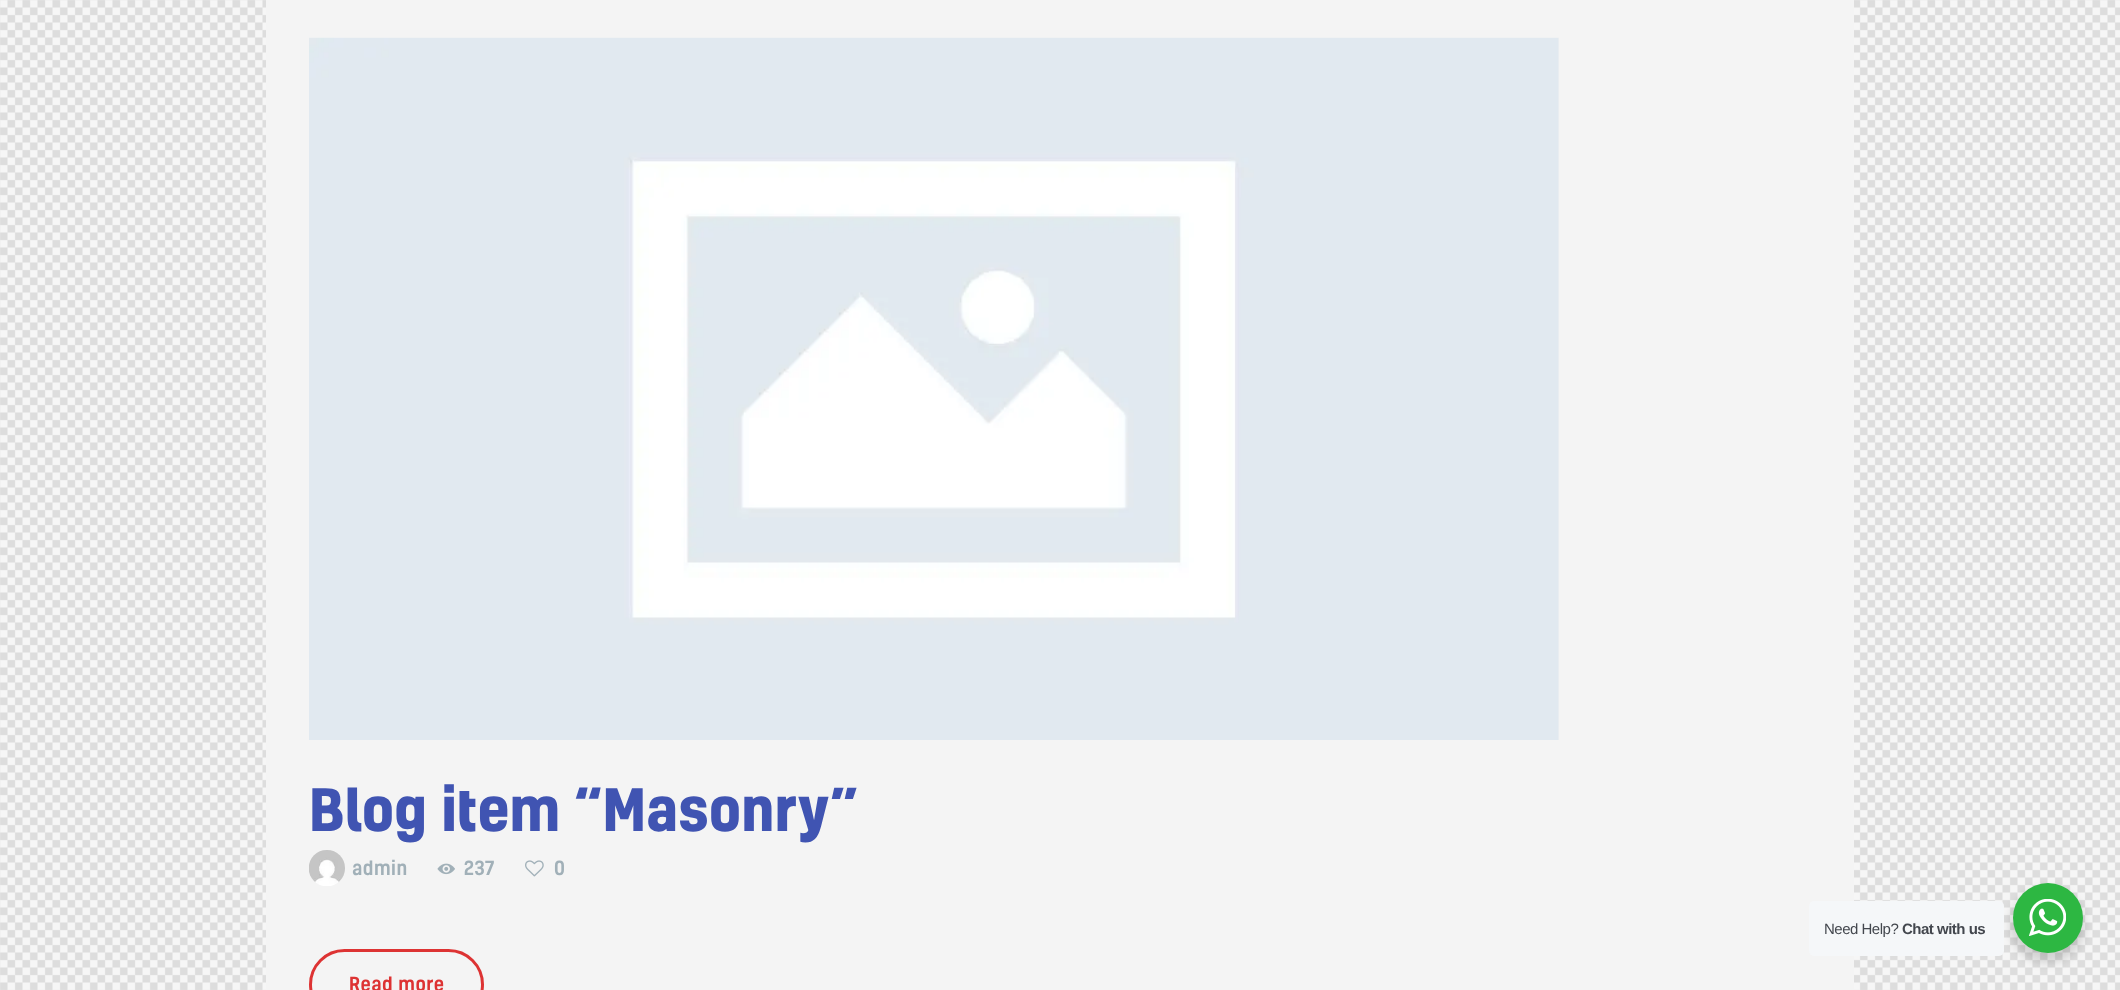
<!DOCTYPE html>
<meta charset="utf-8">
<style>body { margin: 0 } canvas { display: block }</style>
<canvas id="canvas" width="2120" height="990"></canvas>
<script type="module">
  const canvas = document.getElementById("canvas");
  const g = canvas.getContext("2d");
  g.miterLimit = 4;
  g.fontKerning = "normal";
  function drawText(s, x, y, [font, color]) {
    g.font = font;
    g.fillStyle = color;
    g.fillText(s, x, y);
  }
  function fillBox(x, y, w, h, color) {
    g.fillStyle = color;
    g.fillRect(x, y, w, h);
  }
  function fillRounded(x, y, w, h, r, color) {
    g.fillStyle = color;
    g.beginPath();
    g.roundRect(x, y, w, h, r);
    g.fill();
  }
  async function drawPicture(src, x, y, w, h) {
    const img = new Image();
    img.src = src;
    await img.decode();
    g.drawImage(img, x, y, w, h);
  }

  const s1 = ["bold 56.25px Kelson", "#4054B2"];
  const s2 = ["500 18.75px Kelson", "#A1B0B8"];
  const s3 = ["500 18.75px Kelson", "#DD3333"];
  const s4 = ["15px Liberation Sans", "#43474E"];
  const s5 = ["bold 15px Liberation Sans", "#43474E"];

  fillBox(0, 0, 2120, 990, "#FFFFFF");
  await drawPicture("pic1.png", 0, 0, 2120, 990);
  fillBox(266, 0, 1588, 990, "#F4F4F4");
  await drawPicture("pic2.png", 309, 37, 1250, 703);
  drawText("Blog item “Masonry”", 309, 831, s1);
  await drawPicture("pic3.png", 309, 850, 36, 36);
  g.letterSpacing = "0.5px";
  drawText("admin", 352, 875, s2);
  await drawPicture("pic4.png", 437, 863, 18, 12);
  drawText("237", 464, 875, s2);
  await drawPicture("pic5.png", 525, 860, 19, 17);
  drawText("0", 554, 875, s2);
  g.beginPath();
  g.roundRect(310.5, 950.5, 172, 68, 34);
  g.strokeStyle = "#DD3333";
  g.lineWidth = 3;
  g.stroke();
  drawText("Read more", 349, 991, s3);
  g.fillStyle = "rgba(0, 0, 0, 0.14)";
  g.filter = "blur(5px)";
  g.beginPath();
  g.roundRect(2010, 888, 75, 75, 37.5);
  g.fill();
  g.filter = "none";
  fillRounded(1809, 901, 195, 55, 5, "#F5F7F9");
  g.letterSpacing = "-0.5px";
  drawText("Need Help?", 1824, 934, s4);
  drawText("Chat with us", 1902, 934, s5);
  g.fillStyle = "#2DB742";
  g.beginPath();
  g.arc(2048, 918, 35, 0, Math.PI * 2);
  g.fill();
  await drawPicture("pic6.png", 2029, 899, 37, 37);
</script>
